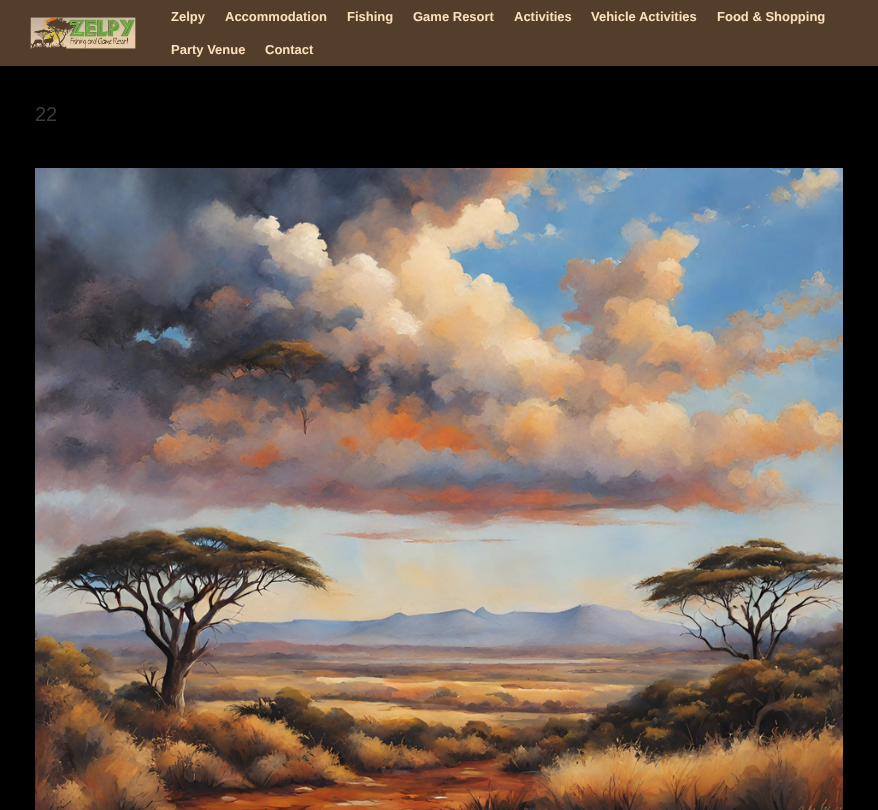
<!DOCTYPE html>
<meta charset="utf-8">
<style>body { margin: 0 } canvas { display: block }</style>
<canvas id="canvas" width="878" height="810"></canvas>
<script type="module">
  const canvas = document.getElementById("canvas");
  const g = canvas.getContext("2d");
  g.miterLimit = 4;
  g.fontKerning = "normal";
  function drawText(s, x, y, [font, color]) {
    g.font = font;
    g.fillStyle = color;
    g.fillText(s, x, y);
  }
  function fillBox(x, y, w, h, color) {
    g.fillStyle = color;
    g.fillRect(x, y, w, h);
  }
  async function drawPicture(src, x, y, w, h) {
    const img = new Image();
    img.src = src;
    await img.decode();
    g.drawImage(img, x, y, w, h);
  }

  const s1 = ["bold 13px Liberation Sans", "#FCE0BB"];
  const s2 = ["20px Liberation Sans", "#3B3B3B"];

  fillBox(0, 0, 878, 810, "#000000");
  fillBox(0, 0, 878, 66, "#523E2A");
  await drawPicture("pic1.png", 30, 17, 106, 32);
  drawText("Zelpy", 171, 21, s1);
  drawText("Accommodation", 225, 21, s1);
  drawText("Fishing", 347, 21, s1);
  drawText("Game Resort", 413, 21, s1);
  drawText("Activities", 514, 21, s1);
  drawText("Vehicle Activities", 591, 21, s1);
  drawText("Food & Shopping", 717, 21, s1);
  drawText("Party Venue", 171, 54, s1);
  drawText("Contact", 265, 54, s1);
  drawText("22", 35, 121, s2);
  await drawPicture("pic2.png", 35, 168, 808, 642);
</script>
